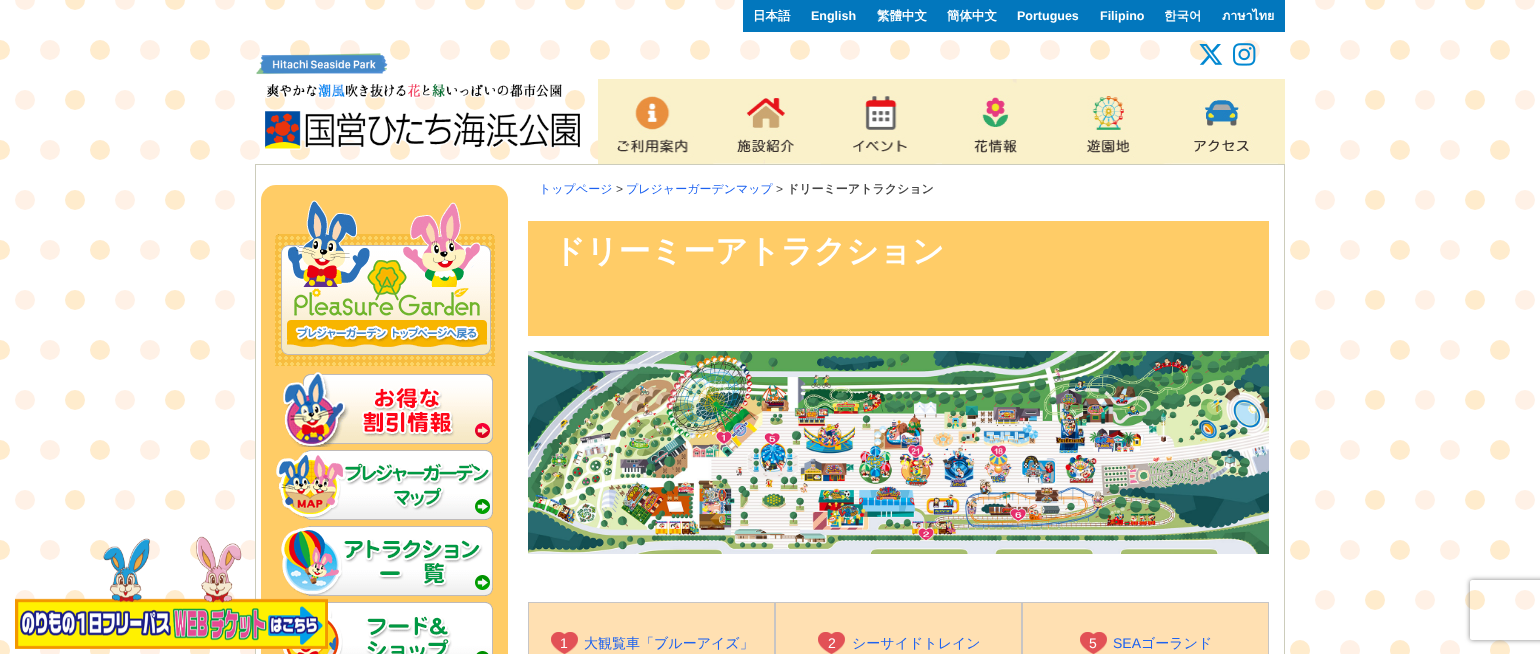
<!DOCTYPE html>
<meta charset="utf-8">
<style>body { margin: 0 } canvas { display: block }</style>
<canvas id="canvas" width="1540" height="654"></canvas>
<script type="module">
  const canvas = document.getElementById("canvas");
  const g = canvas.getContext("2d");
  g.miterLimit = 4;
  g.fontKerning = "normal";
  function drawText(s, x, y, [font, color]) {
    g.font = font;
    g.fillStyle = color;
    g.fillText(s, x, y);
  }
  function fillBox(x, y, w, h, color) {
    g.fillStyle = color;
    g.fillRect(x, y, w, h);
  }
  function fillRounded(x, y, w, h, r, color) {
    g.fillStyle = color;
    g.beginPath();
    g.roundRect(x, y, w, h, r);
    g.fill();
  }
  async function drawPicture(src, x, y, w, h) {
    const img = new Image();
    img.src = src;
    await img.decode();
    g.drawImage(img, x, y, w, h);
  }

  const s1 = ["bold 12.5px WenQuanYi Zen Hei", "#FFFFFF"];
  const s2 = ["bold 12.5px Liberation Sans", "#FFFFFF"];
  const s3 = ["bold 12.5px Loma", "#FFFFFF"];
  const s4 = ["500 12px WenQuanYi Zen Hei", "#1D62F0"];
  const s5 = ["12px Liberation Sans", "#444444"];
  const s6 = ["bold 12px WenQuanYi Zen Hei", "#444444"];
  const s7 = ["bold 32px WenQuanYi Zen Hei", "#FFFFFF"];
  const s8 = ["14px Liberation Sans", "#FFFFFF"];
  const s9 = ["500 14px WenQuanYi Zen Hei", "#1D62F0"];
  const s10 = ["14px Liberation Sans", "#1D62F0"];

  fillBox(0, 0, 1540, 654, "#FFFFFF");
  g.beginPath();
  g.moveTo(25, 0);
  g.lineTo(1525.2, 0);
  g.strokeStyle = "#FFF1E6";
  g.lineWidth = 20;
  g.lineCap = "round";
  g.setLineDash([0, 100]);
  g.stroke();
  g.beginPath();
  g.moveTo(25, 100);
  g.lineTo(1525.2, 100);
  g.stroke();
  g.beginPath();
  g.moveTo(25, 200);
  g.lineTo(1525.2, 200);
  g.stroke();
  g.beginPath();
  g.moveTo(25, 300);
  g.lineTo(1525.2, 300);
  g.stroke();
  g.beginPath();
  g.moveTo(25, 400);
  g.lineTo(1525.2, 400);
  g.stroke();
  g.beginPath();
  g.moveTo(25, 500);
  g.lineTo(1525.2, 500);
  g.stroke();
  g.beginPath();
  g.moveTo(25, 600);
  g.lineTo(1525.2, 600);
  g.stroke();
  g.beginPath();
  g.moveTo(75, 0);
  g.lineTo(1475.2, 0);
  g.strokeStyle = "#FFECCD";
  g.stroke();
  g.beginPath();
  g.moveTo(75, 100);
  g.lineTo(1475.2, 100);
  g.stroke();
  g.beginPath();
  g.moveTo(75, 200);
  g.lineTo(1475.2, 200);
  g.stroke();
  g.beginPath();
  g.moveTo(75, 300);
  g.lineTo(1475.2, 300);
  g.stroke();
  g.beginPath();
  g.moveTo(75, 400);
  g.lineTo(1475.2, 400);
  g.stroke();
  g.beginPath();
  g.moveTo(75, 500);
  g.lineTo(1475.2, 500);
  g.stroke();
  g.beginPath();
  g.moveTo(75, 600);
  g.lineTo(1475.2, 600);
  g.stroke();
  g.beginPath();
  g.moveTo(0, 50);
  g.lineTo(1500.2, 50);
  g.stroke();
  g.beginPath();
  g.moveTo(0, 150);
  g.lineTo(1500.2, 150);
  g.stroke();
  g.beginPath();
  g.moveTo(0, 250);
  g.lineTo(1500.2, 250);
  g.stroke();
  g.beginPath();
  g.moveTo(0, 350);
  g.lineTo(1500.2, 350);
  g.stroke();
  g.beginPath();
  g.moveTo(0, 450);
  g.lineTo(1500.2, 450);
  g.stroke();
  g.beginPath();
  g.moveTo(0, 550);
  g.lineTo(1500.2, 550);
  g.stroke();
  g.beginPath();
  g.moveTo(0, 650);
  g.lineTo(1500.2, 650);
  g.stroke();
  g.beginPath();
  g.moveTo(50, 50);
  g.lineTo(1450.2, 50);
  g.strokeStyle = "#FFF1E6";
  g.stroke();
  g.beginPath();
  g.moveTo(50, 150);
  g.lineTo(1450.2, 150);
  g.stroke();
  g.beginPath();
  g.moveTo(50, 250);
  g.lineTo(1450.2, 250);
  g.stroke();
  g.beginPath();
  g.moveTo(50, 350);
  g.lineTo(1450.2, 350);
  g.stroke();
  g.beginPath();
  g.moveTo(50, 450);
  g.lineTo(1450.2, 450);
  g.stroke();
  g.beginPath();
  g.moveTo(50, 550);
  g.lineTo(1450.2, 550);
  g.stroke();
  g.beginPath();
  g.moveTo(50, 650);
  g.lineTo(1450.2, 650);
  g.stroke();
  fillBox(743, 0, 542, 32, "#0277BD");
  drawText("日本語", 753, 20, s1);
  drawText("English", 811, 20, s2);
  drawText("繁體中文", 877, 20, s1);
  drawText("簡体中文", 947, 20, s1);
  drawText("Portugues", 1017, 20, s2);
  drawText("Filipino", 1100, 20, s2);
  drawText("한국어", 1164, 20, s1);
  drawText("ภาษาไทย", 1222, 20, s3);
  await drawPicture("pic1.png", 256, 53, 324, 97);
  await drawPicture("pic2.png", 1199, 44, 24, 21);
  await drawPicture("pic3.png", 1233, 43, 23, 23);
  await drawPicture("pic4.png", 598, 79, 115, 85);
  await drawPicture("pic5.png", 713, 79, 114, 85);
  await drawPicture("pic6.png", 827, 79, 115, 85);
  await drawPicture("pic7.png", 942, 79, 114, 85);
  await drawPicture("pic8.png", 1056, 79, 114, 85);
  await drawPicture("pic9.png", 1170, 79, 115, 85);
  fillBox(256, 190, 1028, 464, "#FFFFFF");
  g.strokeStyle = "#CCCCBB";
  g.lineWidth = 1;
  g.setLineDash([]);
  g.strokeRect(255.5, 164.5, 1029, 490);
  fillRounded(261, 185, 247, 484, 15, "#FFCC66");
  await drawPicture("pic14.png", 281, 526, 212, 70);
  await drawPicture("pic15.png", 282, 602, 211, 52);
  await drawPicture("pic10.png", 15, 536, 313, 113);
  await drawPicture("pic11.png", 275, 200, 220, 166);
  await drawPicture("pic12.png", 283, 372, 210, 75);
  await drawPicture("pic13.png", 276, 450, 217, 70);
  drawText("トップページ", 539, 193, s4);
  drawText(">", 616, 193, s5);
  drawText("プレジャーガーデンマップ", 626, 193, s4);
  drawText(">", 776, 193, s5);
  drawText("ドリーミーアトラクション", 787, 193, s6);
  fillBox(528, 221, 741, 115, "#FFCC67");
  drawText("ドリーミーアトラクション", 553, 262, s7);
  await drawPicture("pic16.png", 528, 351, 741, 203);
  g.strokeStyle = "#C7C5C5";
  g.strokeRect(528.5, 602.5, 246, 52);
  fillBox(529, 603, 245, 51, "#FFE0B2");
  await drawPicture("pic17.png", 551, 632, 27, 22);
  drawText("1", 560, 648, s8);
  drawText("大観覧車「ブルーアイズ」", 584, 648, s9);
  g.strokeRect(775.5, 602.5, 246, 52);
  fillBox(776, 603, 245, 51, "#FFE0B2");
  await drawPicture("pic18.png", 818, 632, 27, 22);
  drawText("2", 828, 648, s8);
  drawText("シーサイドトレイン", 852, 648, s9);
  g.strokeRect(1022.5, 602.5, 246, 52);
  fillBox(1023, 603, 245, 51, "#FFE0B2");
  await drawPicture("pic18.png", 1080, 632, 27, 22);
  drawText("5", 1089, 648, s8);
  drawText("SEA", 1113, 648, s10);
  drawText("ゴーランド", 1141, 648, s9);
  g.save();
  g.beginPath();
  g.moveTo(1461, 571);
  g.lineTo(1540, 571);
  g.lineTo(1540, 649);
  g.lineTo(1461, 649);
  g.closePath();
  g.moveTo(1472, 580);
  g.lineTo(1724, 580);
  g.bezierCurveTo(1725, 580, 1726, 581, 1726, 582);
  g.lineTo(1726, 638);
  g.bezierCurveTo(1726, 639, 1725, 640, 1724, 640);
  g.lineTo(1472, 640);
  g.bezierCurveTo(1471, 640, 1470, 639, 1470, 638);
  g.lineTo(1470, 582);
  g.bezierCurveTo(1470, 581, 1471, 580, 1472, 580);
  g.closePath();
  g.clip("evenodd");
  g.fillStyle = "#808080";
  g.filter = "blur(2.5px)";
  g.beginPath();
  g.roundRect(1470, 580, 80, 60, 2);
  g.fill();
  g.filter = "none";
  g.restore();
</script>
